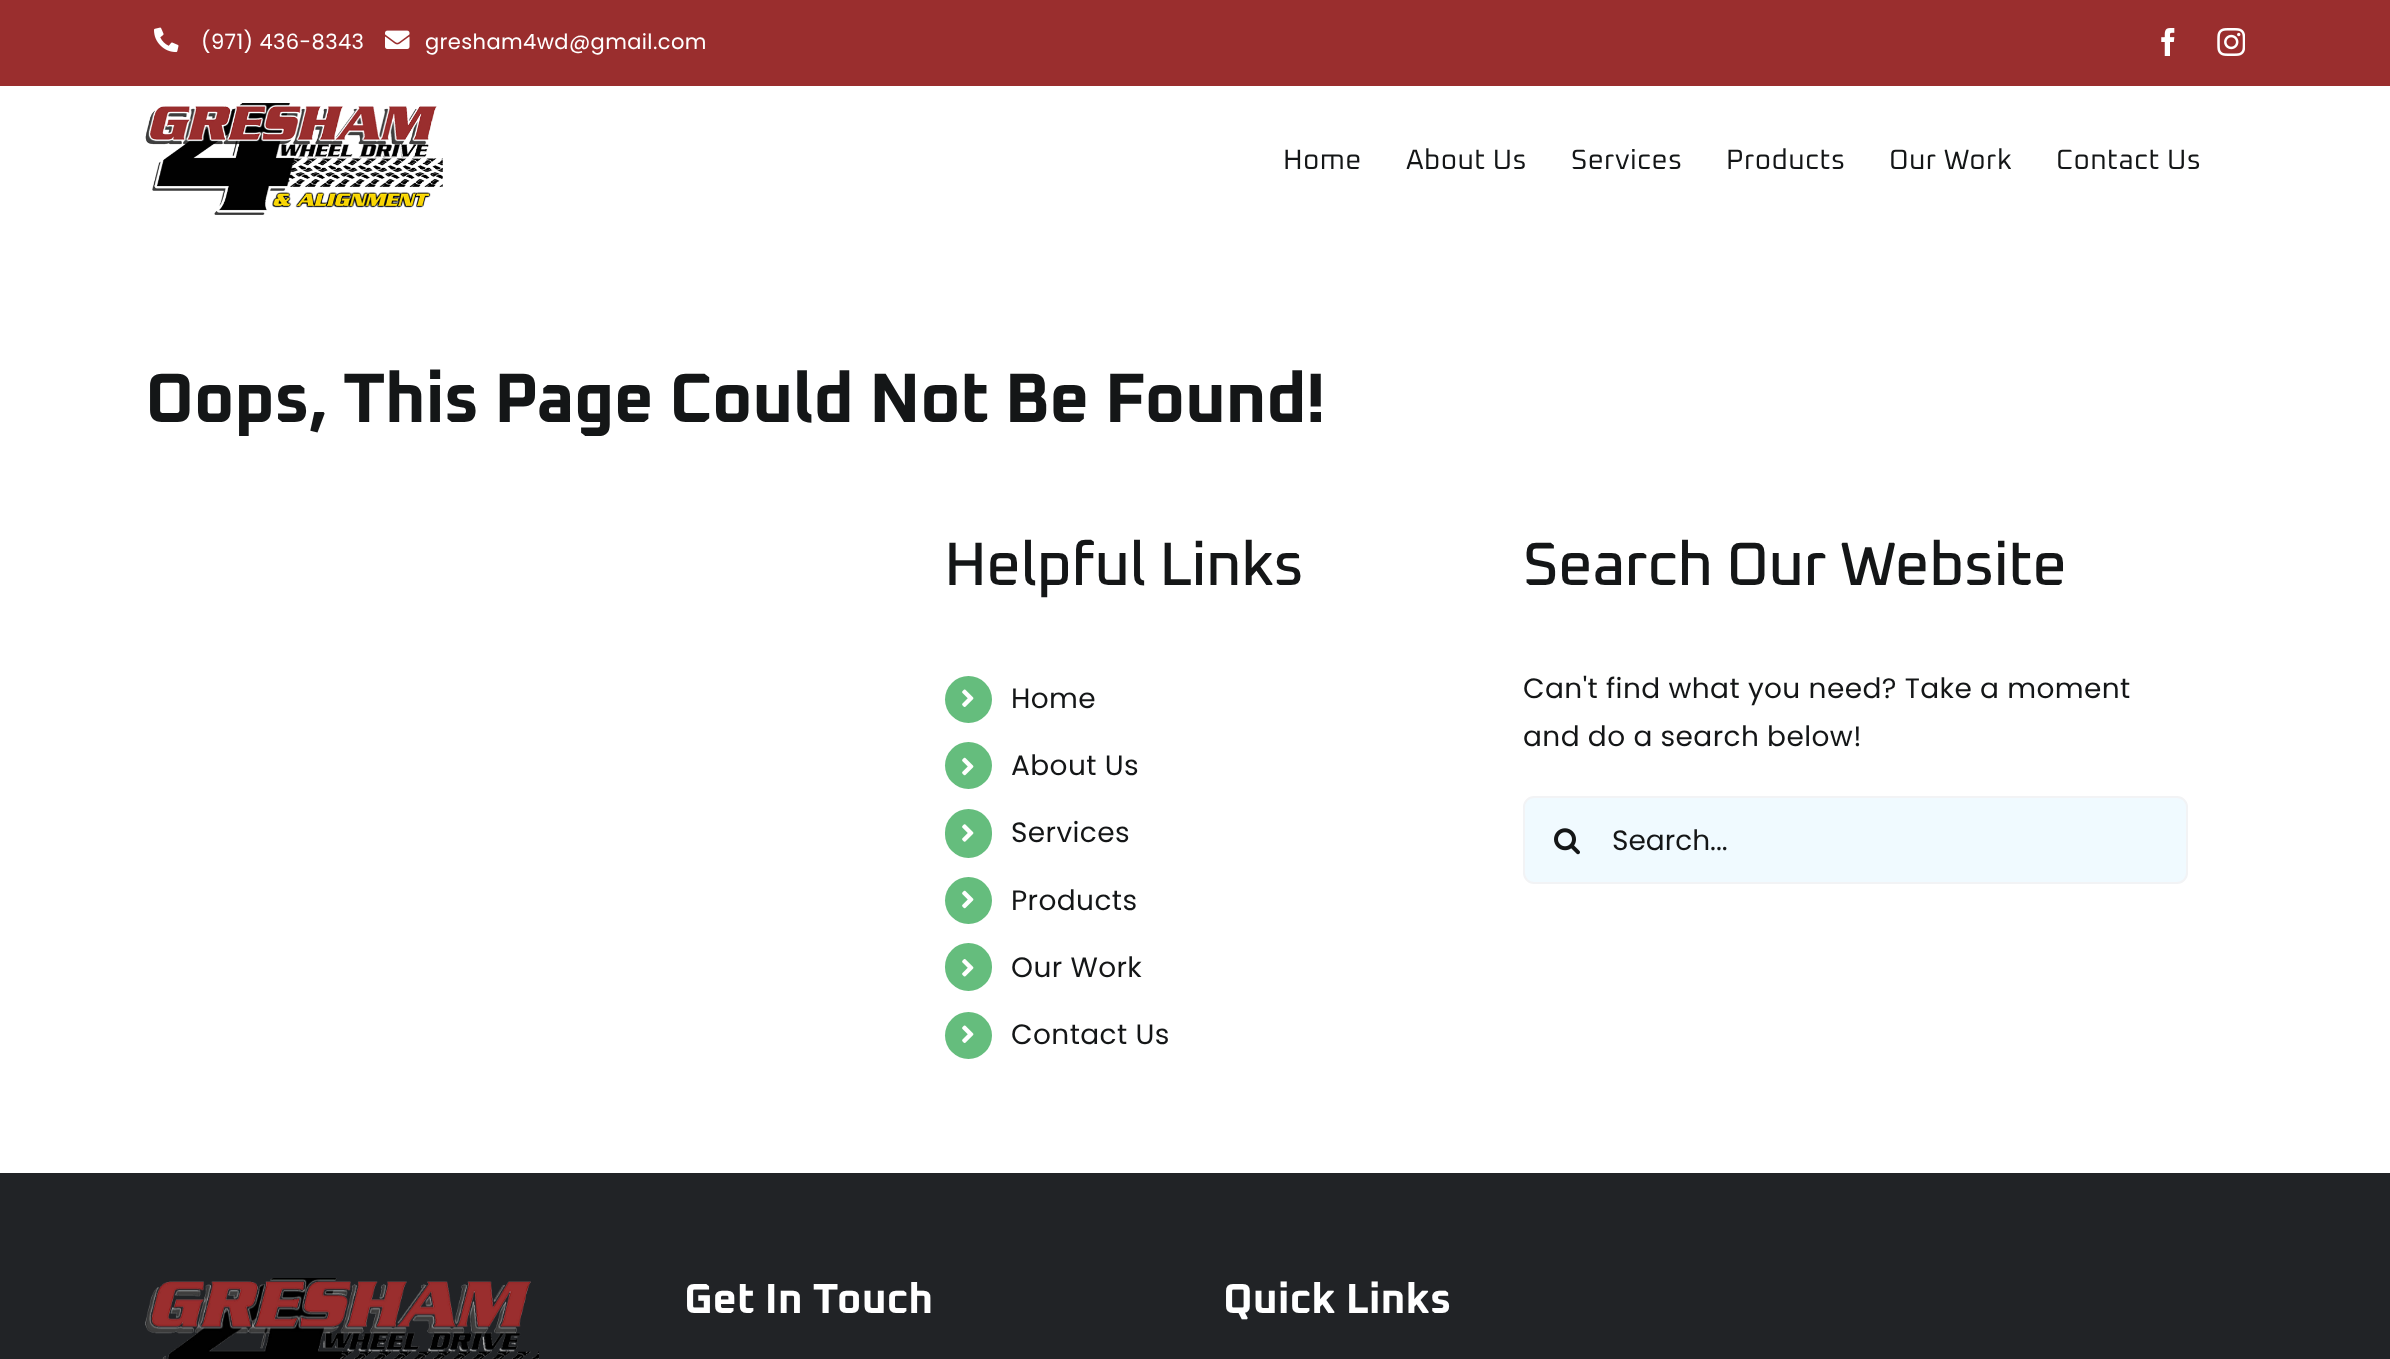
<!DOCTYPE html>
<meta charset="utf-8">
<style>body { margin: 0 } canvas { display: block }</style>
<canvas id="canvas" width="2390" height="1359"></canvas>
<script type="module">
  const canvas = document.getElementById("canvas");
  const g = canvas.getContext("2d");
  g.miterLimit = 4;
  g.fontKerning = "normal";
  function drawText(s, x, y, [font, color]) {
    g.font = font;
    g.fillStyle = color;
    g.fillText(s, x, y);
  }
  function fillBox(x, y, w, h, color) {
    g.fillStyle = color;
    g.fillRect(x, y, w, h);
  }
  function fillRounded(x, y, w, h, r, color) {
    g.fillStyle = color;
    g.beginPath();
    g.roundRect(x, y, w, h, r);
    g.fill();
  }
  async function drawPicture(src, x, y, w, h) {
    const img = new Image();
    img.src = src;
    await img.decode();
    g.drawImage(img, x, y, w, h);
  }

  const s1 = ["21px Poppins", "#FFFFFF"];
  const s2 = ["28px Oxanium", "#141617"];
  const s3 = ["bold 70px Oxanium", "#141617"];
  const s4 = ["500 61.25px Oxanium", "#141617"];
  const s5 = ["28px Poppins", "#141617"];
  const s6 = ["bold 42px Oxanium", "#FFFFFF"];

  fillBox(0, 0, 2390, 1359, "#FFFFFF");
  fillBox(0, 0, 2390, 86, "#9A2E2E");
  await drawPicture("pic1.png", 154, 27, 25, 26);
  g.letterSpacing = "0.4px";
  drawText("(971) 436-8343", 201, 49, s1);
  await drawPicture("pic2.png", 385, 30, 25, 19);
  drawText("gresham4wd@gmail.com", 425, 49, s1);
  await drawPicture("pic3.png", 2161, 28, 14, 28);
  await drawPicture("pic4.png", 2217, 28, 28, 28);
  await drawPicture("pic5.png", 145, 103, 298, 112);
  drawText("Home", 1283, 169, s2);
  drawText("About Us", 1406, 169, s2);
  drawText("Services", 1571, 169, s2);
  drawText("Products", 1726, 169, s2);
  drawText("Our Work", 1889, 169, s2);
  drawText("Contact Us", 2056, 169, s2);
  g.letterSpacing = "-1.05px";
  drawText("Oops, This Page Could Not Be Found!", 145, 422, s3);
  g.letterSpacing = "-0.9px";
  drawText("Helpful Links", 944, 585, s4);
  g.fillStyle = "#65BD7D";
  g.beginPath();
  g.arc(968.5, 699.5, 23.5, 0, Math.PI * 2);
  g.fill();
  await drawPicture("pic6.png", 962, 689, 12, 18);
  g.letterSpacing = "0.4px";
  drawText("Home", 1011, 708, s5);
  g.fillStyle = "#65BD7D";
  g.beginPath();
  g.arc(968.5, 765.5, 23.5, 0, Math.PI * 2);
  g.fill();
  await drawPicture("pic7.png", 962, 757, 12, 19);
  drawText("About Us", 1011, 775, s5);
  fillRounded(945, 809, 47, 49, 23.5, "#65BD7D");
  await drawPicture("pic8.png", 962, 824, 12, 18);
  drawText("Services", 1011, 842, s5);
  g.fillStyle = "#65BD7D";
  g.beginPath();
  g.arc(968.5, 900.5, 23.5, 0, Math.PI * 2);
  g.fill();
  await drawPicture("pic7.png", 962, 890, 12, 19);
  drawText("Products", 1011, 910, s5);
  fillRounded(945, 943, 47, 48, 23.5, "#65BD7D");
  await drawPicture("pic9.png", 962, 959, 12, 18);
  drawText("Our Work", 1011, 977, s5);
  g.fillStyle = "#65BD7D";
  g.beginPath();
  g.arc(968.5, 1035.5, 23.5, 0, Math.PI * 2);
  g.fill();
  await drawPicture("pic6.png", 962, 1025, 12, 18);
  drawText("Contact Us", 1011, 1044, s5);
  g.letterSpacing = "-0.9px";
  drawText("Search Our Website", 1523, 585, s4);
  g.letterSpacing = "0.4px";
  drawText("Can't find what you need? Take a moment", 1523, 698, s5);
  drawText("and do a search below!", 1523, 746, s5);
  g.fillStyle = "#F0FAFF";
  g.beginPath();
  g.roundRect(1524, 797, 663, 86, 10);
  g.fill();
  g.strokeStyle = "#F2F3F5";
  g.lineWidth = 2;
  g.stroke();
  await drawPicture("pic10.png", 1554, 828, 26, 27);
  g.letterSpacing = "0px";
  drawText("Search...", 1612, 850, s5);
  fillBox(0, 1173, 2390, 186, "#212326");
  await drawPicture("pic11.png", 145, 1278, 394, 81);
  drawText("Get In Touch", 684, 1313, s6);
  drawText("Quick Links", 1223, 1313, s6);
</script>
